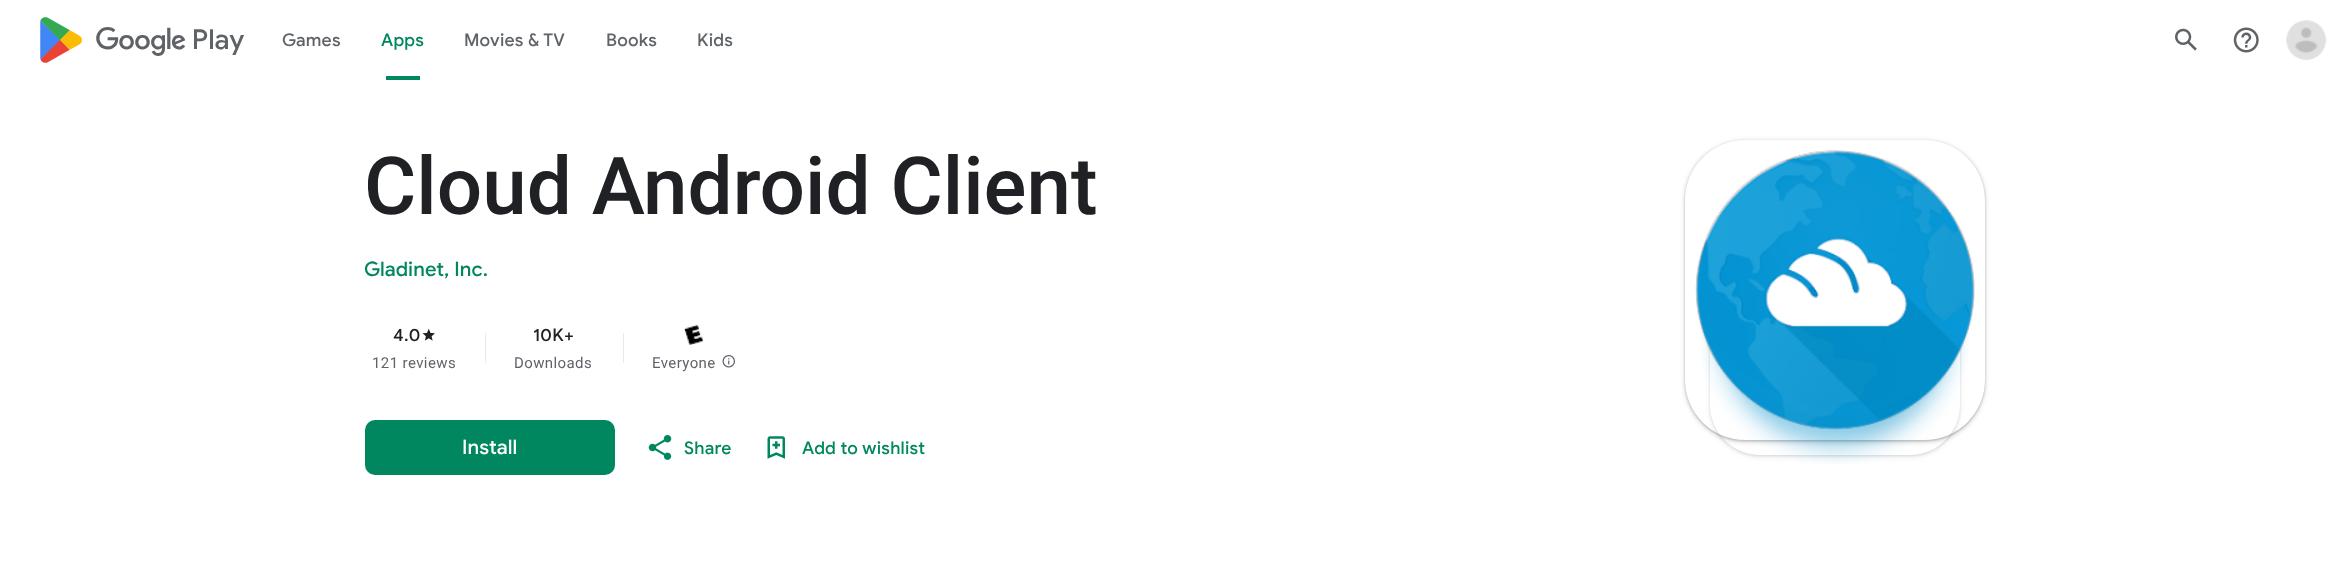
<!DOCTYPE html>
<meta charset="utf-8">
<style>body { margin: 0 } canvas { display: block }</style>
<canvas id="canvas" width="2348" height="565"></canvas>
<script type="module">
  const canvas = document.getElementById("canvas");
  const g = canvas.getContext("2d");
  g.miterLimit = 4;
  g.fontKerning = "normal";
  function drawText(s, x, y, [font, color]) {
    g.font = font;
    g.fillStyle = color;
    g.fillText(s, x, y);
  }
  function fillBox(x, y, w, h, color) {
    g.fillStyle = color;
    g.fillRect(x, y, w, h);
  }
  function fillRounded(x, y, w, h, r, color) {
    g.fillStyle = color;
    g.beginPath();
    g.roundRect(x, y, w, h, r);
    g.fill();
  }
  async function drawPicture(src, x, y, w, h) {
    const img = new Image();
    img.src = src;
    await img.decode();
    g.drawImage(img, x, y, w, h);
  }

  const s1 = ["500 27.5px Google Sans", "#5F6368"];
  const s2 = ["500 17.5px Google Sans", "#5F6368"];
  const s3 = ["500 17.5px Google Sans", "#01875F"];
  const s4 = ["500 80px Roboto", "#202124"];
  const s5 = ["500 20px Google Sans", "#01875F"];
  const s6 = ["500 17.5px Google Sans", "#202124"];
  const s7 = ["15px Roboto", "#5F6368"];
  const s8 = ["500 20px Google Sans", "#FFFFFF"];

  fillBox(0, 0, 2348, 565, "#FFFFFF");
  await drawPicture("pic1.png", 40, 17, 42, 46);
  drawText("google_logo Play", 95, 49, s1);
  g.letterSpacing = "0.25px";
  drawText("Games", 282, 46, s2);
  drawText("Apps", 381, 46, s3);
  fillBox(386, 76, 34, 4, "#01875F");
  drawText("Movies & TV", 464, 46, s2);
  drawText("Books", 606, 46, s2);
  drawText("Kids", 697, 46, s2);
  await drawPicture("pic2.png", 2175, 28, 22, 23);
  await drawPicture("pic3.png", 2233, 27, 26, 26);
  await drawPicture("pic4.png", 2286, 20, 41, 40);
  g.letterSpacing = "0px";
  drawText("Cloud Android Client", 364, 214, s4);
  g.letterSpacing = "0.1px";
  drawText("Gladinet, Inc.", 364, 276, s5);
  g.letterSpacing = "0.25px";
  drawText("4.0", 393, 341, s6);
  await drawPicture("pic5.png", 422, 328, 13, 13);
  g.letterSpacing = "0.4px";
  drawText("121 reviews", 372, 368, s7);
  fillBox(485, 333, 1, 30, "#E8EAED");
  g.letterSpacing = "0.25px";
  drawText("10K+", 533, 341, s6);
  g.letterSpacing = "0.4px";
  drawText("Downloads", 514, 368, s7);
  fillBox(623, 333, 1, 30, "#E8EAED");
  await drawPicture("pic6.png", 683, 325, 21, 20);
  drawText("Everyone", 652, 368, s7);
  await drawPicture("pic7.png", 722, 355, 13, 13);
  g.save();
  g.beginPath();
  g.moveTo(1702, 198);
  g.lineTo(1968, 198);
  g.lineTo(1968, 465);
  g.lineTo(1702, 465);
  g.closePath();
  g.moveTo(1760, 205);
  g.lineTo(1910, 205);
  g.bezierCurveTo(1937.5, 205, 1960, 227.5, 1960, 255);
  g.lineTo(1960, 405);
  g.bezierCurveTo(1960, 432.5, 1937.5, 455, 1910, 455);
  g.lineTo(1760, 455);
  g.bezierCurveTo(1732.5, 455, 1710, 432.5, 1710, 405);
  g.lineTo(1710, 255);
  g.bezierCurveTo(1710, 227.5, 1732.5, 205, 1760, 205);
  g.closePath();
  g.clip("evenodd");
  g.fillStyle = "rgba(158, 160, 161, 0.15)";
  g.filter = "blur(2px)";
  g.beginPath();
  g.roundRect(1709, 205, 252, 253, 51);
  g.fill();
  g.filter = "none";
  g.restore();
  g.save();
  g.beginPath();
  g.moveTo(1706, 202);
  g.lineTo(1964, 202);
  g.lineTo(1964, 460);
  g.lineTo(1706, 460);
  g.closePath();
  g.moveTo(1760, 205);
  g.lineTo(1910, 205);
  g.bezierCurveTo(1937.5, 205, 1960, 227.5, 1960, 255);
  g.lineTo(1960, 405);
  g.bezierCurveTo(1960, 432.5, 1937.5, 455, 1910, 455);
  g.lineTo(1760, 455);
  g.bezierCurveTo(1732.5, 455, 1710, 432.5, 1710, 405);
  g.lineTo(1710, 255);
  g.bezierCurveTo(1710, 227.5, 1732.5, 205, 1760, 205);
  g.closePath();
  g.clip("evenodd");
  g.fillStyle = "rgba(158, 160, 161, 0.3)";
  g.filter = "blur(1px)";
  g.beginPath();
  g.roundRect(1710, 206, 250, 250, 50);
  g.fill();
  g.filter = "none";
  g.restore();
  await drawPicture("pic9.png", 1701, 318, 268, 146);
  g.save();
  g.beginPath();
  g.moveTo(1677, 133);
  g.lineTo(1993, 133);
  g.lineTo(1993, 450);
  g.lineTo(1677, 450);
  g.closePath();
  g.moveTo(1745, 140);
  g.lineTo(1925, 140);
  g.bezierCurveTo(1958, 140, 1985, 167, 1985, 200);
  g.lineTo(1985, 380);
  g.bezierCurveTo(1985, 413, 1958, 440, 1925, 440);
  g.lineTo(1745, 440);
  g.bezierCurveTo(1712, 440, 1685, 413, 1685, 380);
  g.lineTo(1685, 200);
  g.bezierCurveTo(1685, 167, 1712, 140, 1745, 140);
  g.closePath();
  g.clip("evenodd");
  g.fillStyle = "rgba(60, 64, 67, 0.15)";
  g.filter = "blur(2px)";
  g.beginPath();
  g.roundRect(1684, 140, 302, 303, 61);
  g.fill();
  g.filter = "none";
  g.restore();
  g.save();
  g.beginPath();
  g.moveTo(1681, 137);
  g.lineTo(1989, 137);
  g.lineTo(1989, 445);
  g.lineTo(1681, 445);
  g.closePath();
  g.moveTo(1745, 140);
  g.lineTo(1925, 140);
  g.bezierCurveTo(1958, 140, 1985, 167, 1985, 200);
  g.lineTo(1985, 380);
  g.bezierCurveTo(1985, 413, 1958, 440, 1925, 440);
  g.lineTo(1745, 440);
  g.bezierCurveTo(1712, 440, 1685, 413, 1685, 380);
  g.lineTo(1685, 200);
  g.bezierCurveTo(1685, 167, 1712, 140, 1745, 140);
  g.closePath();
  g.clip("evenodd");
  g.fillStyle = "rgba(60, 64, 67, 0.3)";
  g.filter = "blur(1px)";
  g.beginPath();
  g.roundRect(1685, 141, 300, 300, 60);
  g.fill();
  g.filter = "none";
  g.restore();
  await drawPicture("pic8.png", 1695, 150, 280, 280);
  fillRounded(365, 420, 250, 55, 10, "#01875F");
  g.letterSpacing = "0.1px";
  drawText("Install", 462, 454, s8);
  await drawPicture("pic10.png", 648, 435, 24, 25);
  g.letterSpacing = "0.25px";
  drawText("Share", 684, 454, s3);
  await drawPicture("pic11.png", 767, 436, 18, 23);
  drawText("Add to wishlist", 802, 454, s3);
</script>
